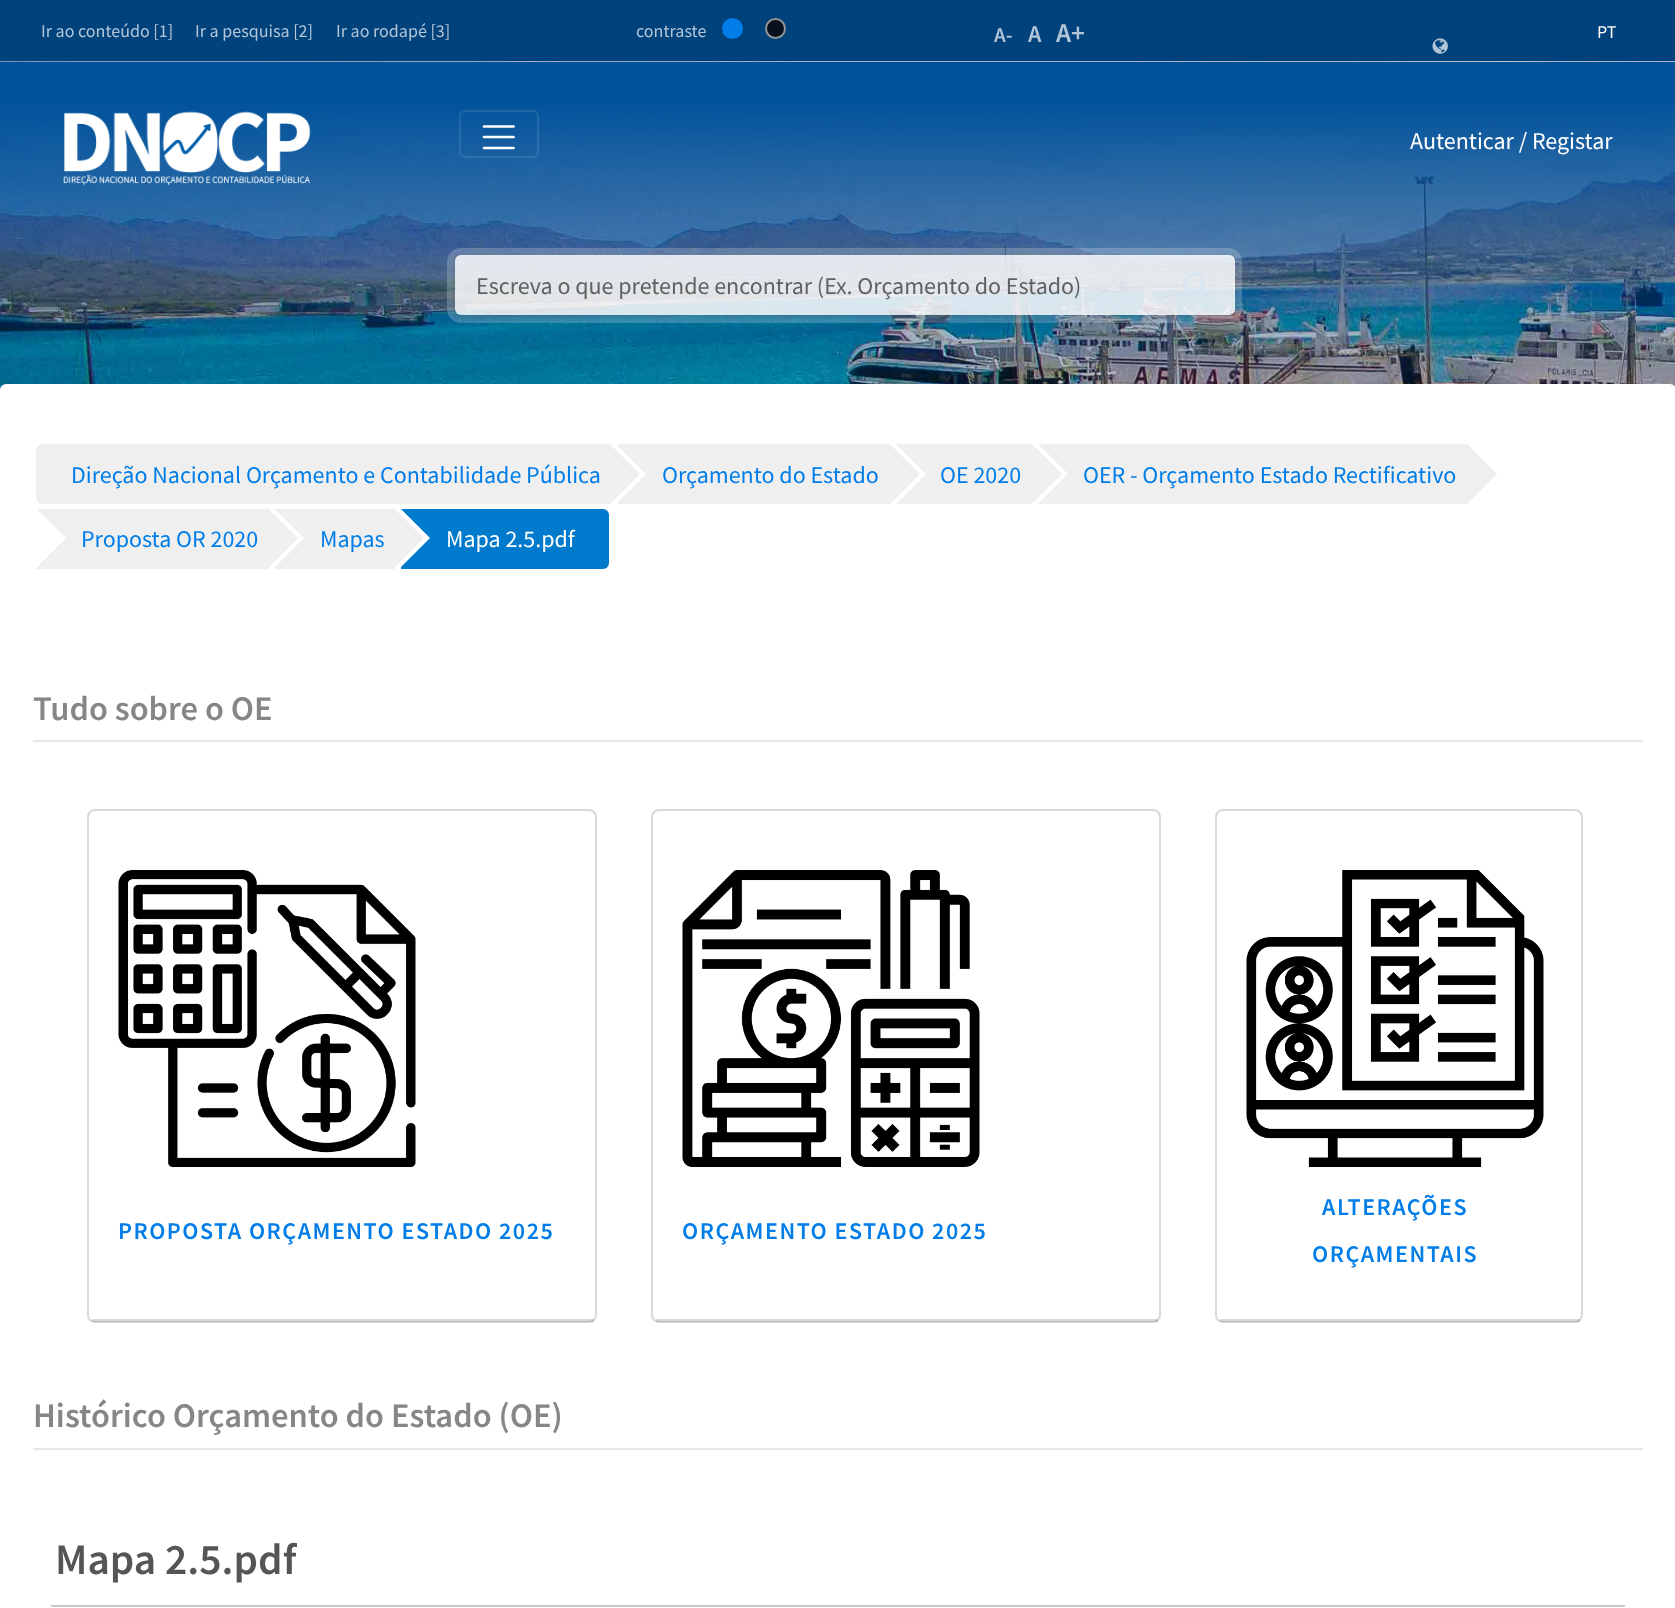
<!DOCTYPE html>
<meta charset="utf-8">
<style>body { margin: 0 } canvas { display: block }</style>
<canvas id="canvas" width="1675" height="1608"></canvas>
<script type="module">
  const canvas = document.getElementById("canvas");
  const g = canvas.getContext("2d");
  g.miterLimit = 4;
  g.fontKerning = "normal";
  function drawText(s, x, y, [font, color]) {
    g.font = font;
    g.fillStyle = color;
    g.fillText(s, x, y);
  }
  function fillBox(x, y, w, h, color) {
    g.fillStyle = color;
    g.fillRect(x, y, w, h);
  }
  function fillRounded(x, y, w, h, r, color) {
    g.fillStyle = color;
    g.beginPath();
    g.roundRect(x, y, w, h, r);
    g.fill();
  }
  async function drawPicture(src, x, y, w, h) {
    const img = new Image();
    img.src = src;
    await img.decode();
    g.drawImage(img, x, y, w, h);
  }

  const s1 = ["18px Source Sans Pro", "#B3C6D8"];
  const s2 = ["600 21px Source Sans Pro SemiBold", "#B3C6D8"];
  const s3 = ["600 24px Source Sans Pro SemiBold", "#B3C6D8"];
  const s4 = ["600 27px Source Sans Pro SemiBold", "#B3C6D8"];
  const s5 = ["18px Source Sans Pro", "#FFFFFF"];
  const s6 = ["24px Source Sans Pro", "#FFFFFF"];
  const s7 = ["24px Source Sans Pro", "#616162"];
  const s8 = ["24px Source Sans Pro", "#007DE8"];
  const s9 = ["600 34.5px Source Sans Pro SemiBold", "#868686"];
  const s10 = ["600 24px Source Sans Pro SemiBold", "#007DE8"];
  const s11 = ["600 43.5px Source Sans Pro SemiBold", "#555555"];

  fillBox(0, 0, 1675, 1608, "#00427C");
  drawText("Ir ao conteúdo [1]", 41, 37, s1);
  drawText("Ir a pesquisa [2]", 195, 37, s1);
  drawText("Ir ao rodapé [3]", 336, 37, s1);
  drawText("contraste", 636, 37, s1);
  g.fillStyle = "#007DE8";
  g.beginPath();
  g.arc(732.5, 28.5, 10.5, 0, Math.PI * 2);
  g.fill();
  g.fillStyle = "#09101D";
  g.beginPath();
  g.arc(775.5, 28.5, 10.5, 0, Math.PI * 2);
  g.fill();
  g.beginPath();
  g.arc(775.5, 28.5, 9.5, 0, Math.PI * 2);
  g.strokeStyle = "rgba(255, 255, 255, 0.56)";
  g.lineWidth = 2;
  g.stroke();
  drawText("A-", 994, 42, s2);
  drawText("A", 1028, 42, s3);
  drawText("A+", 1056, 42, s4);
  drawText("PT", 1597, 38, s5);
  await drawPicture("pic1.png", 1432, 38, 16, 16);
  await drawPicture("pic2.png", 0, 61, 1675, 329);
  await drawPicture("pic3.png", 63, 111, 248, 75);
  g.beginPath();
  g.roundRect(460, 111, 78, 46, 5);
  g.strokeStyle = "rgba(255, 255, 255, 0.1)";
  g.stroke();
  g.beginPath();
  g.moveTo(484, 126.5);
  g.lineTo(513.5, 126.5);
  g.moveTo(484, 137);
  g.lineTo(513.5, 137);
  g.moveTo(484, 148);
  g.lineTo(513.5, 148);
  g.strokeStyle = "#FFFFFF";
  g.lineWidth = 2.7;
  g.lineCap = "round";
  g.stroke();
  drawText("Autenticar / Registar", 1410, 149, s6);
  await drawPicture("pic4.png", 1184, 272, 26, 26);
  g.beginPath();
  g.roundRect(451, 252, 787, 67, 10);
  g.strokeStyle = "rgba(255, 255, 255, 0.21)";
  g.lineWidth = 8;
  g.stroke();
  g.save();
  g.beginPath();
  g.moveTo(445, 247);
  g.lineTo(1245, 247);
  g.lineTo(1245, 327);
  g.lineTo(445, 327);
  g.closePath();
  g.moveTo(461, 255);
  g.lineTo(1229, 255);
  g.bezierCurveTo(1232.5, 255, 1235, 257.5, 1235, 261);
  g.lineTo(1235, 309);
  g.bezierCurveTo(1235, 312.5, 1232.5, 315, 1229, 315);
  g.lineTo(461, 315);
  g.bezierCurveTo(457.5, 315, 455, 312.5, 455, 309);
  g.lineTo(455, 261);
  g.bezierCurveTo(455, 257.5, 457.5, 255, 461, 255);
  g.closePath();
  g.clip("evenodd");
  g.fillStyle = "rgba(0, 0, 0, 0.16)";
  g.filter = "blur(3px)";
  g.beginPath();
  g.roundRect(455, 257, 780, 60, 6);
  g.fill();
  g.filter = "none";
  g.restore();
  fillRounded(455, 255, 780, 60, 6, "rgba(255, 255, 255, 0.85)");
  drawText("Escreva o que pretende encontrar (Ex. Orçamento do Estado)", 476, 294, s7);
  fillRounded(0, 384, 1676, 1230, 6, "#FFFFFF");
  g.fillStyle = "#EFEFEF";
  g.beginPath();
  g.roundRect(36, 444, 581, 60, [6, 0, 0, 6]);
  g.fill();
  fillBox(611, 444, 6, 60, "#FFFFFF");
  drawText("Direção Nacional Orçamento e Contabilidade Pública", 71, 483, s8);
  fillBox(617, 444, 273, 60, "#EFEFEF");
  g.fillStyle = "#FFFFFF";
  g.beginPath();
  g.moveTo(616, 504);
  g.lineTo(616, 444);
  g.lineTo(646, 474);
  g.closePath();
  g.fill();
  g.fillStyle = "#EFEFEF";
  g.beginPath();
  g.moveTo(610, 504);
  g.lineTo(610, 444);
  g.lineTo(640, 474);
  g.closePath();
  g.fill();
  drawText("Orçamento do Estado", 662, 483, s8);
  fillBox(896, 444, 136, 60, "#EFEFEF");
  g.fillStyle = "#FFFFFF";
  g.beginPath();
  g.moveTo(896, 504);
  g.lineTo(896, 444);
  g.lineTo(926, 474);
  g.closePath();
  g.fill();
  g.fillStyle = "#EFEFEF";
  g.beginPath();
  g.moveTo(890, 504);
  g.lineTo(890, 444);
  g.lineTo(920, 474);
  g.closePath();
  g.fill();
  drawText("OE 2020", 940, 483, s8);
  fillBox(1038, 444, 429, 60, "#EFEFEF");
  g.fillStyle = "#FFFFFF";
  g.beginPath();
  g.moveTo(1038, 504);
  g.lineTo(1038, 444);
  g.lineTo(1068, 474);
  g.closePath();
  g.fill();
  g.fillStyle = "#EFEFEF";
  g.beginPath();
  g.moveTo(1032, 504);
  g.lineTo(1032, 444);
  g.lineTo(1062, 474);
  g.closePath();
  g.fill();
  drawText("OER - Orçamento Estado Rectificativo", 1083, 483, s8);
  g.fillStyle = "#EFEFEF";
  g.beginPath();
  g.moveTo(1467, 504);
  g.lineTo(1467, 444);
  g.lineTo(1497, 474);
  g.closePath();
  g.fill();
  fillBox(36, 509, 233, 60, "#EFEFEF");
  g.fillStyle = "#FFFFFF";
  g.beginPath();
  g.moveTo(36, 568);
  g.lineTo(36, 508);
  g.lineTo(66, 538);
  g.closePath();
  g.fill();
  drawText("Proposta OR 2020", 81, 547, s8);
  fillBox(275, 509, 120, 60, "#EFEFEF");
  g.fillStyle = "#FFFFFF";
  g.beginPath();
  g.moveTo(274, 568);
  g.lineTo(274, 508);
  g.lineTo(304, 538);
  g.closePath();
  g.fill();
  g.fillStyle = "#EFEFEF";
  g.beginPath();
  g.moveTo(268, 568);
  g.lineTo(268, 508);
  g.lineTo(298, 538);
  g.closePath();
  g.fill();
  drawText("Mapas", 320, 547, s8);
  g.fillStyle = "#007ACC";
  g.beginPath();
  g.roundRect(401, 509, 208, 60, [0, 6, 6, 0]);
  g.fill();
  g.fillStyle = "#FFFFFF";
  g.beginPath();
  g.moveTo(400, 568);
  g.lineTo(400, 508);
  g.lineTo(430, 538);
  g.closePath();
  g.fill();
  g.fillStyle = "#EFEFEF";
  g.beginPath();
  g.moveTo(394, 568);
  g.lineTo(394, 508);
  g.lineTo(424, 538);
  g.closePath();
  g.fill();
  drawText("Mapa 2.5.pdf", 446, 547, s6);
  drawText("Tudo sobre o OE", 33, 720, s9);
  fillBox(33, 740, 1610, 2, "#E7E7E7");
  g.beginPath();
  g.roundRect(88, 810, 508, 512, 7);
  g.strokeStyle = "#D9D9D9";
  g.lineWidth = 2;
  g.stroke();
  fillBox(92, 1319, 502, 3, "rgba(0, 0, 0, 0.15)");
  await drawPicture("pic5.png", 118, 870, 298, 297);
  g.letterSpacing = "1.5px";
  drawText("PROPOSTA ORÇAMENTO ESTADO 2025", 118, 1239, s10);
  g.beginPath();
  g.roundRect(652, 810, 508, 512, 7);
  g.stroke();
  fillBox(656, 1319, 502, 3, "rgba(0, 0, 0, 0.15)");
  await drawPicture("pic6.png", 682, 870, 298, 297);
  drawText("ORÇAMENTO ESTADO 2025", 682, 1239, s10);
  g.beginPath();
  g.roundRect(1216, 810, 366, 512, 7);
  g.stroke();
  fillBox(1220, 1319, 360, 3, "rgba(0, 0, 0, 0.15)");
  await drawPicture("pic7.png", 1246, 870, 298, 297);
  drawText("ALTERAÇÕES", 1322, 1215, s10);
  drawText("ORÇAMENTAIS", 1312, 1262, s10);
  g.letterSpacing = "0px";
  drawText("Histórico Orçamento do Estado (OE)", 33, 1427, s9);
  fillBox(33, 1448, 1610, 2, "#E7E7E7");
  fillBox(51, 1605, 1574, 2, "#C8C9CA");
  g.save();
  g.beginPath();
  g.rect(56, 1533, 241, 53);
  g.clip();
  drawText("Mapa 2.5.pdf", 55, 1574, s11);
  g.restore();
</script>
